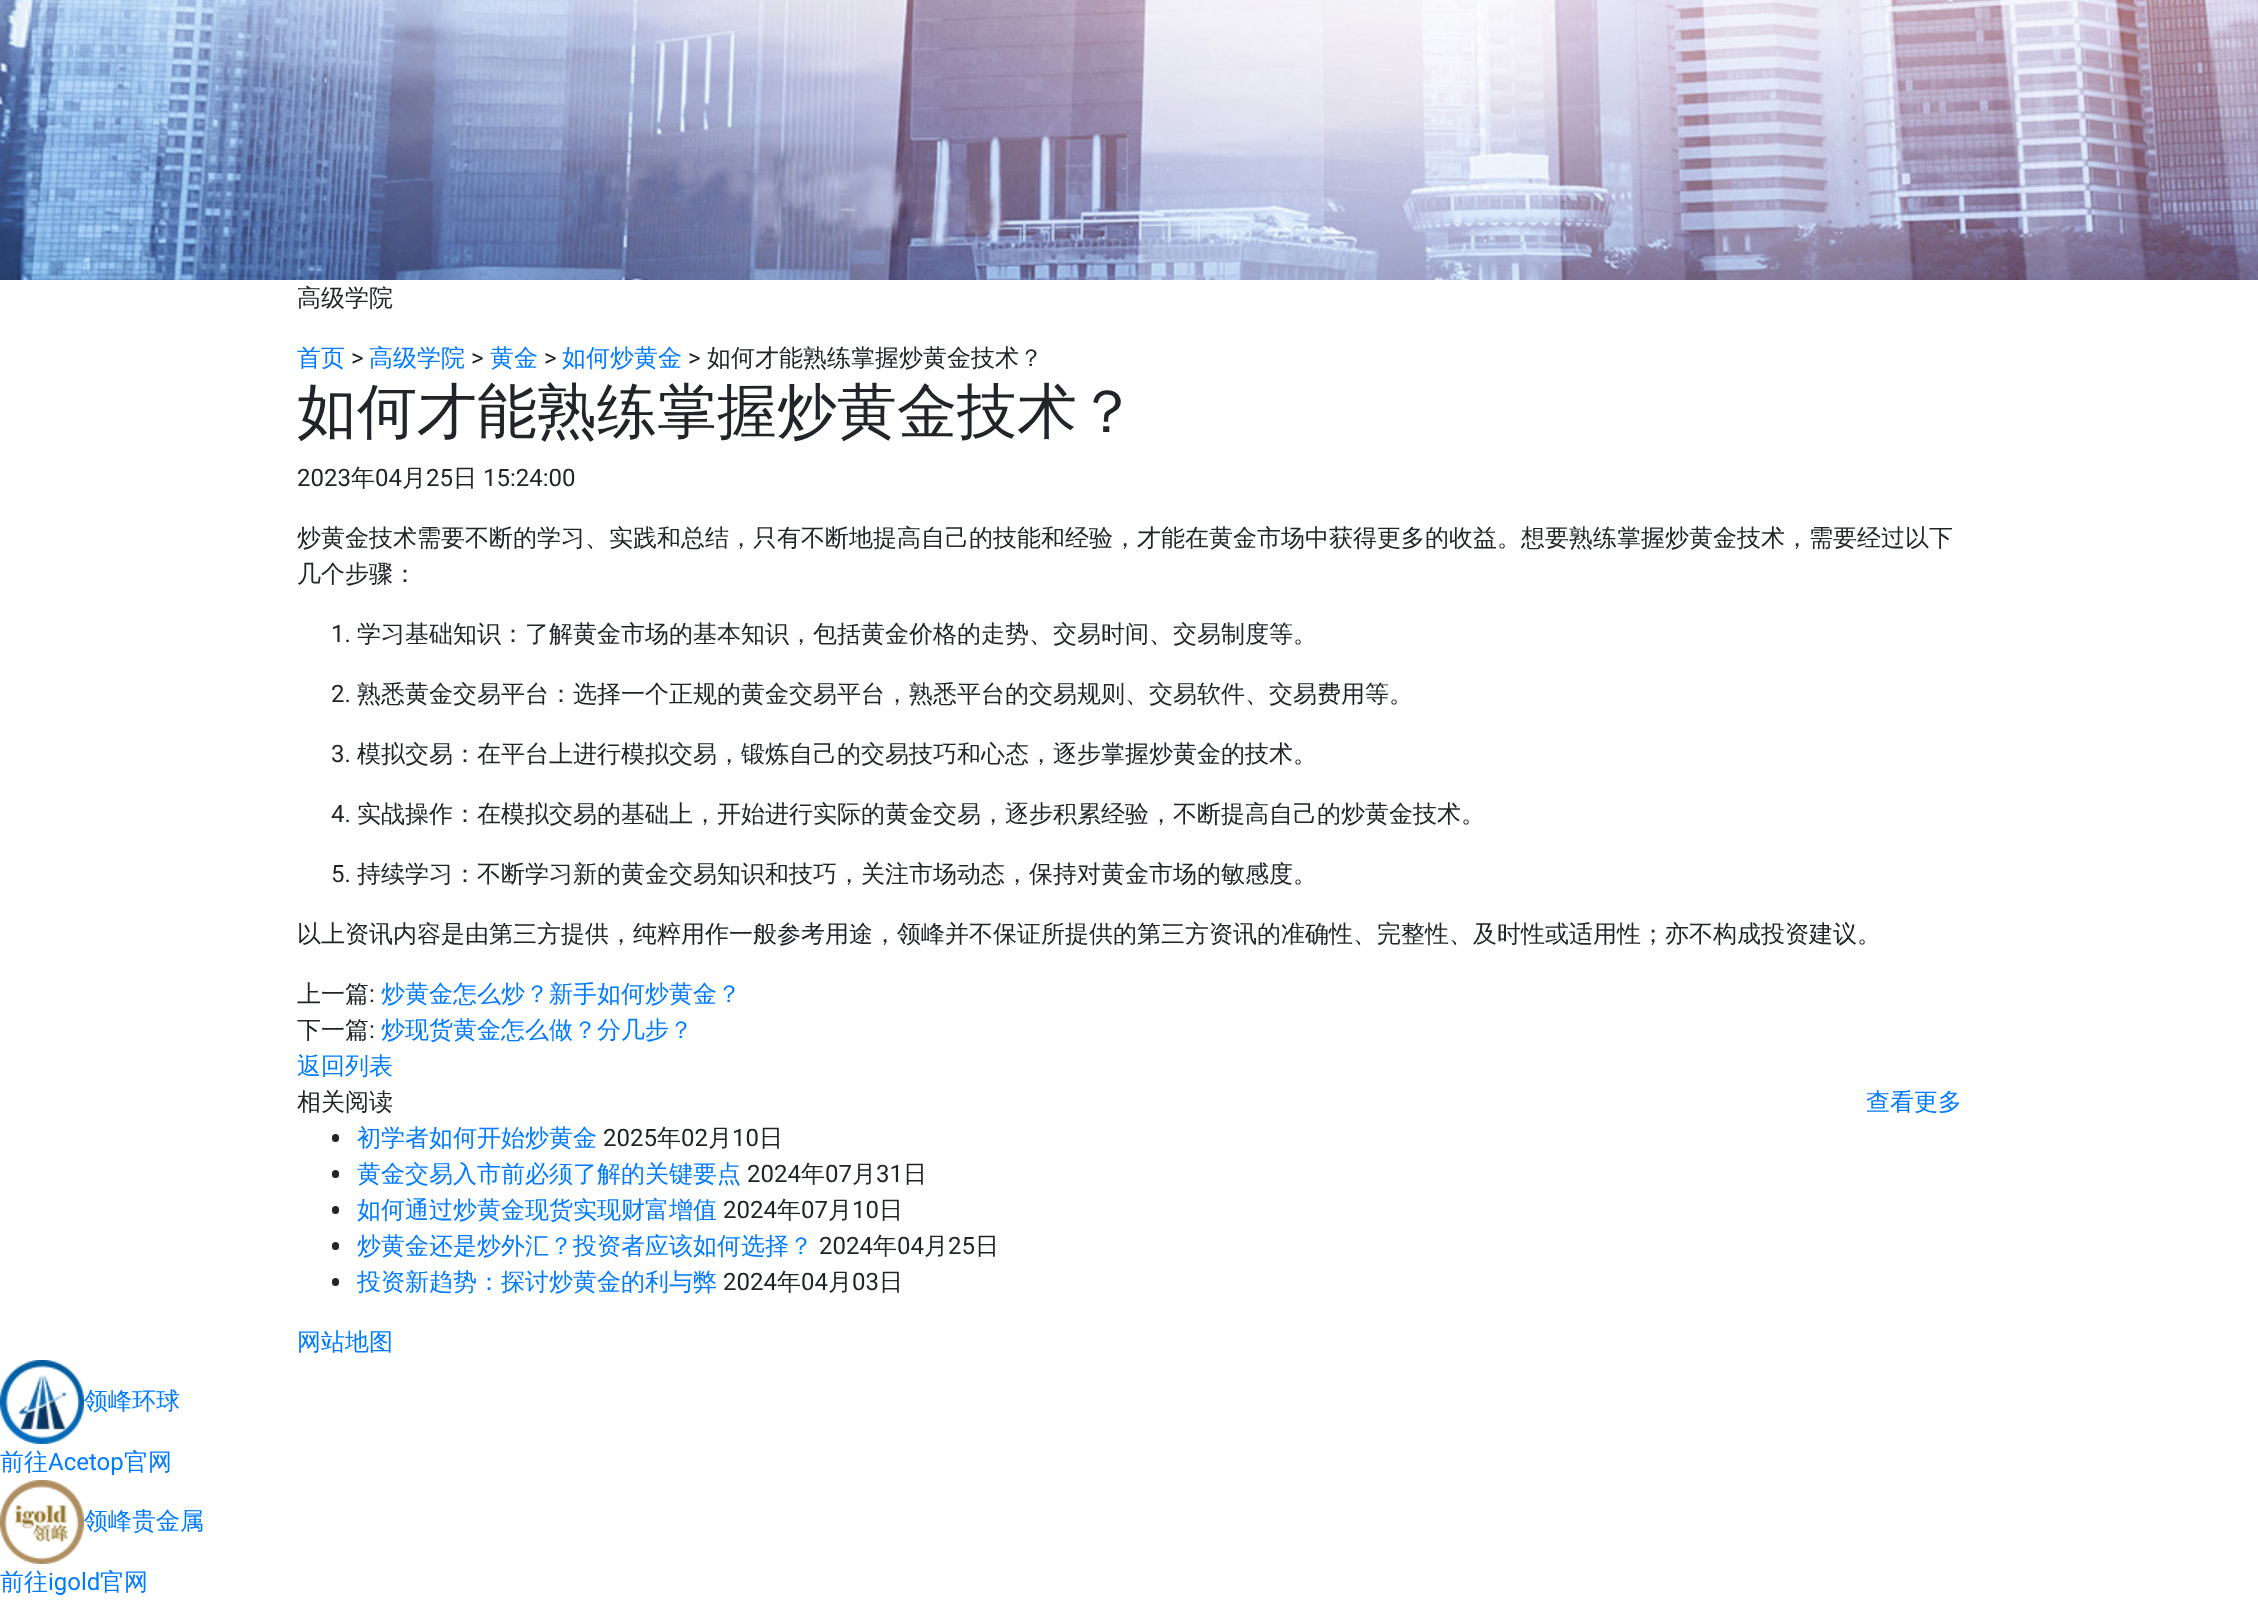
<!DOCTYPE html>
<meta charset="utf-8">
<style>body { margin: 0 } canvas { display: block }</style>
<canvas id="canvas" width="2258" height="1600"></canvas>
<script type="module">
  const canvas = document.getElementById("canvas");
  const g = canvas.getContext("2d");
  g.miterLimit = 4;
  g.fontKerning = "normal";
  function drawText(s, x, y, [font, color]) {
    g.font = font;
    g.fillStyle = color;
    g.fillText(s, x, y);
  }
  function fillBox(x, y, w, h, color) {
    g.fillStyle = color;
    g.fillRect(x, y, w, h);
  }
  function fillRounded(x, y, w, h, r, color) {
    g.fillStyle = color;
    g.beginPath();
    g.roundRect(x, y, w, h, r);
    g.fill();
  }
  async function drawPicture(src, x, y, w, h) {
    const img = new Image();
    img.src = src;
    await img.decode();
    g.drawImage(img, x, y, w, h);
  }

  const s1 = ["500 24px WenQuanYi Zen Hei", "#212529"];
  const s2 = ["500 24px WenQuanYi Zen Hei", "#007BFF"];
  const s3 = ["24px Roboto", "#212529"];
  const s4 = ["500 60px WenQuanYi Zen Hei", "#212529"];
  const s5 = ["24px Roboto", "#007BFF"];

  fillBox(0, 0, 2258, 1600, "#FFFFFF");
  await drawPicture("pic1.png", 0, 0, 2258, 280);
  drawText("高级学院", 297, 306, s1);
  drawText("首页", 297, 366, s2);
  drawText(">", 351, 366, s3);
  drawText("高级学院", 369, 366, s2);
  drawText(">", 471, 366, s3);
  drawText("黄金", 490, 366, s2);
  drawText(">", 544, 366, s3);
  drawText("如何炒黄金", 562, 366, s2);
  drawText(">", 688, 366, s3);
  drawText("如何才能熟练掌握炒黄金技术？", 707, 366, s1);
  drawText("如何才能熟练掌握炒黄金技术？", 297, 432, s4);
  drawText("2023", 297, 486, s3);
  drawText("年", 351, 486, s1);
  drawText("04", 375, 486, s3);
  drawText("月", 402, 486, s1);
  drawText("25", 426, 486, s3);
  drawText("日", 453, 486, s1);
  drawText("15:24:00", 483, 486, s3);
  drawText("炒黄金技术需要不断的学习、实践和总结，只有不断地提高自己的技能和经验，才能在黄金市场中获得更多的收益。想要熟练掌握炒黄金技术，需要经过以下", 297, 546, s1);
  drawText("几个步骤：", 297, 582, s1);
  drawText("1.", 331, 642, s3);
  drawText("学习基础知识：了解黄金市场的基本知识，包括黄金价格的走势、交易时间、交易制度等。", 357, 642, s1);
  drawText("2.", 331, 702, s3);
  drawText("熟悉黄金交易平台：选择一个正规的黄金交易平台，熟悉平台的交易规则、交易软件、交易费用等。", 357, 702, s1);
  drawText("3.", 331, 762, s3);
  drawText("模拟交易：在平台上进行模拟交易，锻炼自己的交易技巧和心态，逐步掌握炒黄金的技术。", 357, 762, s1);
  drawText("4.", 331, 822, s3);
  drawText("实战操作：在模拟交易的基础上，开始进行实际的黄金交易，逐步积累经验，不断提高自己的炒黄金技术。", 357, 822, s1);
  drawText("5.", 331, 882, s3);
  drawText("持续学习：不断学习新的黄金交易知识和技巧，关注市场动态，保持对黄金市场的敏感度。", 357, 882, s1);
  drawText("以上资讯内容是由第三方提供，纯粹用作一般参考用途，领峰并不保证所提供的第三方资讯的准确性、完整性、及时性或适用性；亦不构成投资建议。", 297, 942, s1);
  drawText("上一篇", 297, 1002, s1);
  drawText(":", 369, 1002, s3);
  drawText("炒黄金怎么炒？新手如何炒黄金？", 381, 1002, s2);
  drawText("下一篇", 297, 1038, s1);
  drawText(":", 369, 1038, s3);
  drawText("炒现货黄金怎么做？分几步？", 381, 1038, s2);
  drawText("返回列表", 297, 1074, s2);
  drawText("相关阅读", 297, 1110, s1);
  drawText("查看更多", 1866, 1110, s2);
  fillRounded(332, 1134, 7, 8, 3.5, "#212529");
  drawText("初学者如何开始炒黄金", 357, 1146, s2);
  drawText("2025", 603, 1146, s3);
  drawText("年", 657, 1146, s1);
  drawText("02", 681, 1146, s3);
  drawText("月", 708, 1146, s1);
  drawText("10", 732, 1146, s3);
  drawText("日", 759, 1146, s1);
  fillRounded(332, 1170, 7, 8, 3.5, "#212529");
  drawText("黄金交易入市前必须了解的关键要点", 357, 1182, s2);
  drawText("2024", 747, 1182, s3);
  drawText("年", 801, 1182, s1);
  drawText("07", 825, 1182, s3);
  drawText("月", 852, 1182, s1);
  drawText("31", 876, 1182, s3);
  drawText("日", 903, 1182, s1);
  fillRounded(332, 1206, 7, 8, 3.5, "#212529");
  drawText("如何通过炒黄金现货实现财富增值", 357, 1218, s2);
  drawText("2024", 723, 1218, s3);
  drawText("年", 777, 1218, s1);
  drawText("07", 801, 1218, s3);
  drawText("月", 828, 1218, s1);
  drawText("10", 852, 1218, s3);
  drawText("日", 879, 1218, s1);
  fillRounded(332, 1242, 7, 8, 3.5, "#212529");
  drawText("炒黄金还是炒外汇？投资者应该如何选择？", 357, 1254, s2);
  drawText("2024", 819, 1254, s3);
  drawText("年", 873, 1254, s1);
  drawText("04", 897, 1254, s3);
  drawText("月", 924, 1254, s1);
  drawText("25", 948, 1254, s3);
  drawText("日", 975, 1254, s1);
  fillRounded(332, 1278, 7, 8, 3.5, "#212529");
  drawText("投资新趋势：探讨炒黄金的利与弊", 357, 1290, s2);
  drawText("2024", 723, 1290, s3);
  drawText("年", 777, 1290, s1);
  drawText("04", 801, 1290, s3);
  drawText("月", 828, 1290, s1);
  drawText("03", 852, 1290, s3);
  drawText("日", 879, 1290, s1);
  drawText("网站地图", 297, 1350, s2);
  await drawPicture("pic2.png", 0, 1360, 84, 84);
  drawText("领峰环球", 84, 1409, s2);
  drawText("前往", 0, 1470, s2);
  drawText("Acetop", 48, 1470, s5);
  drawText("官网", 124, 1470, s2);
  await drawPicture("pic3.png", 0, 1480, 84, 84);
  drawText("领峰贵金属", 84, 1529, s2);
  drawText("前往", 0, 1590, s2);
  drawText("igold", 48, 1590, s5);
  drawText("官网", 100, 1590, s2);
</script>
